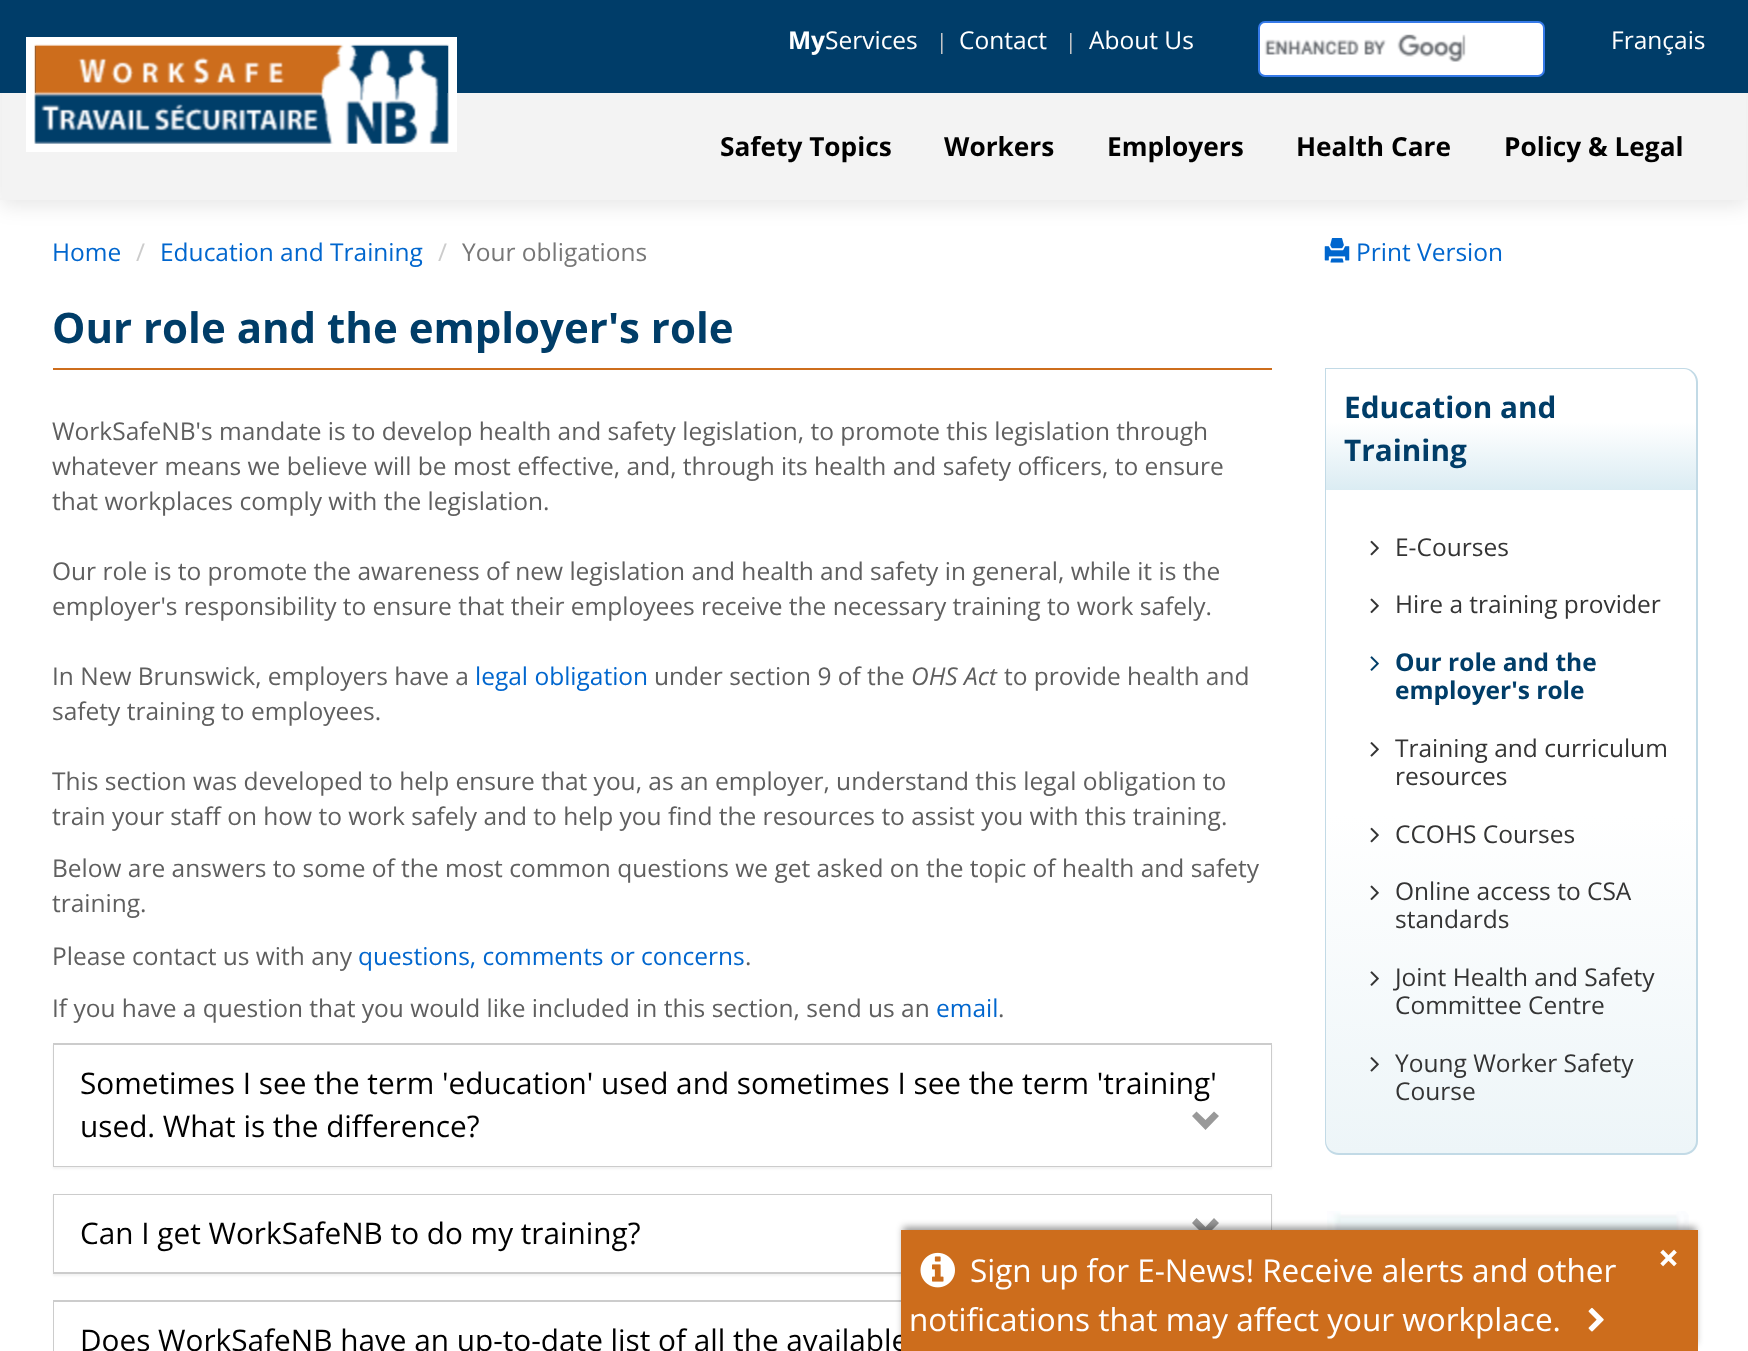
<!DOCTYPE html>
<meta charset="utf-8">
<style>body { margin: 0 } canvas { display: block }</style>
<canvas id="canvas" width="1748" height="1351"></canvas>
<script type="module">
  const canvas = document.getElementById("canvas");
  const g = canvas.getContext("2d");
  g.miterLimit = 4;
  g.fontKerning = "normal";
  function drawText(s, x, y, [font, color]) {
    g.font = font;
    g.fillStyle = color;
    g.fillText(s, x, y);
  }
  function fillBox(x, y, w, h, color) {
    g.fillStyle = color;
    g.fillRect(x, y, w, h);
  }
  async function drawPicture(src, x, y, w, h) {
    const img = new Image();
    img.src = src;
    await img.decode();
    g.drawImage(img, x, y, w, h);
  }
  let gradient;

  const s1 = ["bold 24.5px Open Sans", "#FFFFFF"];
  const s2 = ["24.5px Open Sans", "#FFFFFF"];
  const s3 = ["21px Open Sans", "#CCCCCC"];
  const s4 = ["bold 26.25px Open Sans", "#000000"];
  const s5 = ["24.5px Open Sans", "#0066CE"];
  const s6 = ["24.5px Open Sans", "#CCCCCC"];
  const s7 = ["24.5px Open Sans", "#777777"];
  const s8 = ["bold 42px Open Sans", "#003D68"];
  const s9 = ["24.5px Open Sans", "#5F5F5F"];
  const s10 = ["italic 24.5px Open Sans", "#5F5F5F"];
  const s11 = ["29.75px Open Sans", "#000000"];
  const s12 = ["bold 29.75px Open Sans", "#003D68"];
  const s13 = ["24.5px Open Sans", "#343434"];
  const s14 = ["bold 24.5px Open Sans", "#003D68"];
  const s15 = ["31.5px Open Sans", "#FFFFFF"];
  const s16 = ["bold 37px Open Sans", "#FFFFFF"];

  fillBox(0, 0, 1748, 1351, "#FFFFFF");
  g.fillStyle = "rgba(0, 0, 0, 0.1)";
  g.filter = "blur(10.5px)";
  g.beginPath();
  g.rect(0, 5, 1748, 200);
  g.fill();
  g.filter = "none";
  fillBox(2, 93, 1744, 105, "#F3F3F3");
  fillBox(0, 198, 1748, 2, "#F3F3F3");
  fillBox(0, 0, 1748, 93, "#003D69");
  drawText("My", 788, 49, s1);
  drawText("Services", 825, 49, s2);
  drawText("|", 936, 49, s3);
  drawText("Contact", 959, 49, s2);
  drawText("|", 1065, 49, s3);
  drawText("About Us", 1089, 49, s2);
  g.beginPath();
  g.roundRect(1259, 22, 285, 54, 6);
  g.fill();
  g.strokeStyle = "#367AE9";
  g.lineWidth = 2;
  g.stroke();
  await drawPicture("pic1.png", 1264, 34, 202, 28);
  drawText("Français", 1611, 49, s2);
  g.strokeStyle = "#FFFFFF";
  g.lineWidth = 9;
  g.strokeRect(30.5, 41.5, 422, 106);
  await drawPicture("pic2.png", 34, 44, 415, 100);
  drawText("Safety Topics", 720, 156, s4);
  drawText("Workers", 944, 156, s4);
  drawText("Employers", 1107, 156, s4);
  drawText("Health Care", 1296, 156, s4);
  drawText("Policy & Legal", 1504, 156, s4);
  drawText("Home", 52, 261, s5);
  drawText("/", 136, 261, s6);
  drawText("Education and Training", 160, 261, s5);
  drawText("/", 438, 261, s6);
  drawText("Your obligations", 462, 261, s7);
  await drawPicture("pic3.png", 1324, 238, 26, 25);
  drawText("Print Version", 1356, 261, s5);
  fillBox(53, 368, 1219, 2, "#CD6D1C");
  drawText("Our role and the employer's role", 52, 343, s8);
  drawText("WorkSafeNB's mandate is to develop health and safety legislation, to promote this legislation through", 52, 440, s9);
  drawText("whatever means we believe will be most effective, and, through its health and safety officers, to ensure", 52, 475, s9);
  drawText("that workplaces comply with the legislation.", 52, 510, s9);
  drawText("Our role is to promote the awareness of new legislation and health and safety in general, while it is the", 52, 580, s9);
  drawText("employer's responsibility to ensure that their employees receive the necessary training to work safely.", 52, 615, s9);
  drawText("In New Brunswick, employers have a", 52, 685, s9);
  drawText("legal obligation", 475, 685, s5);
  drawText("under section 9 of the", 654, 685, s9);
  drawText("OHS Act", 911, 685, s10);
  drawText("to provide health and", 1004, 685, s9);
  drawText("safety training to employees.", 52, 720, s9);
  drawText("This section was developed to help ensure that you, as an employer, understand this legal obligation to", 52, 790, s9);
  drawText("train your staff on how to work safely and to help you find the resources to assist you with this training.", 52, 825, s9);
  drawText("Below are answers to some of the most common questions we get asked on the topic of health and safety", 52, 877, s9);
  drawText("training.", 52, 912, s9);
  drawText("Please contact us with any", 52, 965, s9);
  drawText("questions, comments or concerns", 358, 965, s5);
  drawText(".", 745, 965, s9);
  drawText("If you have a question that you would like included in this section, send us an", 52, 1017, s9);
  drawText("email", 936, 1017, s5);
  drawText(".", 998, 1017, s9);
  g.fillStyle = "rgba(0, 0, 0, 0.05)";
  g.filter = "blur(1px)";
  g.beginPath();
  g.rect(53, 1045, 1219, 124);
  g.fill();
  g.filter = "none";
  g.strokeStyle = "#CCCCCC";
  g.lineWidth = 2;
  g.strokeRect(54, 1044, 1217, 122);
  fillBox(54, 1045, 1217, 121, "#FFFFFF");
  drawText("Sometimes I see the term 'education' used and sometimes I see the term 'training'", 80, 1094, s11);
  drawText("used. What is the difference?", 80, 1137, s11);
  g.fillStyle = "#999999";
  g.beginPath();
  g.moveTo(1219, 1116);
  g.lineTo(1205.5, 1130);
  g.lineTo(1192, 1116);
  g.lineTo(1196.5, 1111.5);
  g.lineTo(1205.5, 1120);
  g.lineTo(1214, 1111.5);
  g.closePath();
  g.fill();
  g.fillStyle = "rgba(0, 0, 0, 0.05)";
  g.filter = "blur(1px)";
  g.beginPath();
  g.rect(53, 1195, 1219, 81);
  g.fill();
  g.filter = "none";
  g.strokeRect(54, 1195, 1217, 78);
  fillBox(54, 1195, 1217, 77, "#FFFFFF");
  drawText("Can I get WorkSafeNB to do my training?", 80, 1244, s11);
  g.fillStyle = "#999999";
  g.beginPath();
  g.moveTo(1219, 1223);
  g.lineTo(1205.5, 1236.5);
  g.lineTo(1192, 1223);
  g.lineTo(1196.5, 1218);
  g.lineTo(1205.5, 1227);
  g.lineTo(1214, 1218);
  g.closePath();
  g.fill();
  g.strokeRect(54, 1301, 1217, 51);
  fillBox(54, 1302, 1, 49, "#FFFFFF");
  drawText("Does WorkSafeNB have an up-to-date list of all the available", 80, 1351, s11);
  g.save();
  g.beginPath();
  g.roundRect(1325, 368, 373, 122, [0, 14, 0, 0]);
  g.clip();
  gradient = g.createLinearGradient(1511, 369, 1511, 490);
  gradient.addColorStop(0.44, "#FFFFFF");
  gradient.addColorStop(1, "#DBECF3");
  g.fillStyle = gradient;
  g.fillRect(1326, 369, 372, 121);
  g.restore();
  g.fillStyle = "#C2DAE6";
  g.beginPath();
  g.moveTo(1325, 368);
  g.lineTo(1684, 368);
  g.bezierCurveTo(1691, 368, 1698, 374, 1698, 382);
  g.lineTo(1698, 490);
  g.lineTo(1325, 490);
  g.closePath();
  g.moveTo(1326, 369);
  g.lineTo(1684, 369);
  g.bezierCurveTo(1690, 369, 1696, 375, 1696, 382);
  g.lineTo(1696, 490);
  g.lineTo(1326, 490);
  g.closePath();
  g.fill("evenodd");
  drawText("Education and", 1344, 418, s12);
  drawText("Training", 1344, 461, s12);
  g.save();
  g.beginPath();
  g.roundRect(1325, 490, 373, 665, [0, 0, 14, 14]);
  g.clip();
  gradient = g.createLinearGradient(1511, 490, 1511, 1153);
  gradient.addColorStop(0.49, "#FFFFFF");
  gradient.addColorStop(1, "#EDF5F8");
  g.fillStyle = gradient;
  g.fillRect(1325, 490, 373, 663);
  g.restore();
  g.fillStyle = "#C2DAE6";
  g.beginPath();
  g.moveTo(1325, 490);
  g.lineTo(1698, 490);
  g.lineTo(1698, 1141);
  g.bezierCurveTo(1698, 1149, 1691, 1155, 1684, 1155);
  g.lineTo(1339, 1155);
  g.bezierCurveTo(1331, 1155, 1325, 1149, 1325, 1141);
  g.closePath();
  g.moveTo(1326, 490);
  g.lineTo(1696, 490);
  g.lineTo(1696, 1141);
  g.bezierCurveTo(1696, 1148, 1690, 1153, 1684, 1153);
  g.lineTo(1339, 1153);
  g.bezierCurveTo(1332, 1153, 1326, 1148, 1326, 1141);
  g.closePath();
  g.fill("evenodd");
  await drawPicture("pic4.png", 1370, 540, 9, 16);
  drawText("E-Courses", 1395, 556, s13);
  await drawPicture("pic5.png", 1370, 598, 9, 16);
  drawText("Hire a training provider", 1395, 613, s13);
  await drawPicture("pic6.png", 1370, 656, 9, 15);
  drawText("Our role and the", 1395, 671, s14);
  drawText("employer's role", 1395, 699, s14);
  await drawPicture("pic7.png", 1370, 742, 9, 15);
  drawText("Training and curriculum", 1395, 757, s13);
  drawText("resources", 1395, 785, s13);
  await drawPicture("pic8.png", 1370, 827, 9, 16);
  drawText("CCOHS Courses", 1395, 843, s13);
  await drawPicture("pic9.png", 1370, 885, 9, 16);
  drawText("Online access to CSA", 1395, 900, s13);
  drawText("standards", 1395, 928, s13);
  await drawPicture("pic10.png", 1370, 971, 9, 15);
  drawText("Joint Health and Safety", 1395, 986, s13);
  drawText("Committee Centre", 1395, 1014, s13);
  await drawPicture("pic11.png", 1370, 1057, 9, 15);
  drawText("Young Worker Safety", 1395, 1072, s13);
  drawText("Course", 1395, 1100, s13);
  await drawPicture("pic12.png", 1327, 1211, 362, 19);
  g.fillStyle = "rgba(0, 0, 0, 0.4)";
  g.filter = "blur(3.5px)";
  g.beginPath();
  g.rect(903, 1227, 793, 117);
  g.fill();
  g.filter = "none";
  fillBox(901, 1230, 797, 121, "#CD6D1C");
  await drawPicture("pic13.png", 920, 1252, 35, 36);
  drawText("Sign up for E-News! Receive alerts and other", 970, 1282, s15);
  drawText("notifications that may affect your workplace.", 909, 1331, s15);
  await drawPicture("pic14.png", 1588, 1307, 16, 25);
  drawText("×", 1658, 1271, s16);
</script>
